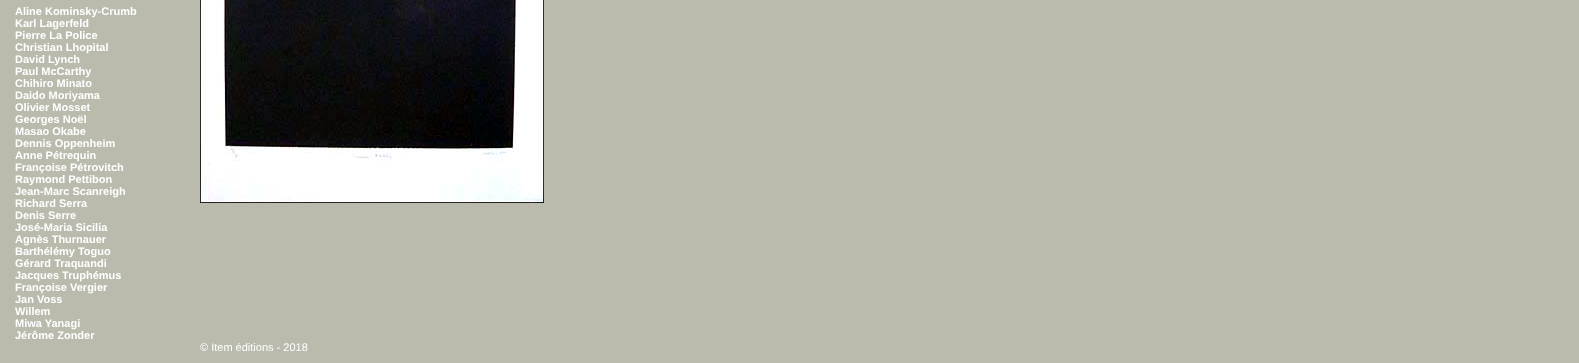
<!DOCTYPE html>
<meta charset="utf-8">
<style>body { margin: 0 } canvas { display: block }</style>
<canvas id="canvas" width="1579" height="363"></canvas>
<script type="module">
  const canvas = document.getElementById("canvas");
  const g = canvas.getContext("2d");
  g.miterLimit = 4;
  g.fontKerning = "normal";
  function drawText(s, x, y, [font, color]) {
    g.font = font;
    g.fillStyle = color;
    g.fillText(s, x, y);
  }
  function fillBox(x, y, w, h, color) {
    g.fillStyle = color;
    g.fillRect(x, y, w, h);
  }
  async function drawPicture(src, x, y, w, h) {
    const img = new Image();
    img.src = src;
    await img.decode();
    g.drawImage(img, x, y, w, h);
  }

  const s1 = ["bold 11px Liberation Sans", "#FFFFFF"];
  const s2 = ["11px Liberation Sans", "#FFFFFF"];

  fillBox(0, 0, 1579, 363, "#BABBAD");
  drawText("Aline Kominsky-Crumb", 15, 15, s1);
  drawText("Karl Lagerfeld", 15, 27, s1);
  drawText("Pierre La Police", 15, 39, s1);
  drawText("Christian Lhopital", 15, 51, s1);
  drawText("David Lynch", 15, 63, s1);
  drawText("Paul McCarthy", 15, 75, s1);
  drawText("Chihiro Minato", 15, 87, s1);
  drawText("Daido Moriyama", 15, 99, s1);
  drawText("Olivier Mosset", 15, 111, s1);
  drawText("Georges Noël", 15, 123, s1);
  drawText("Masao Okabe", 15, 135, s1);
  drawText("Dennis Oppenheim", 15, 147, s1);
  drawText("Anne Pétrequin", 15, 159, s1);
  drawText("Françoise Pétrovitch", 15, 171, s1);
  drawText("Raymond Pettibon", 15, 183, s1);
  drawText("Jean-Marc Scanreigh", 15, 195, s1);
  drawText("Richard Serra", 15, 207, s1);
  drawText("Denis Serre", 15, 219, s1);
  drawText("José-Maria Sicilia", 15, 231, s1);
  drawText("Agnès Thurnauer", 15, 243, s1);
  drawText("Barthélémy Toguo", 15, 255, s1);
  drawText("Gérard Traquandi", 15, 267, s1);
  drawText("Jacques Truphémus", 15, 279, s1);
  drawText("Françoise Vergier", 15, 291, s1);
  drawText("Jan Voss", 15, 303, s1);
  drawText("Willem", 15, 315, s1);
  drawText("Miwa Yanagi", 15, 327, s1);
  drawText("Jérôme Zonder", 15, 339, s1);
  await drawPicture("pic1.png", 200, 0, 344, 203);
  drawText("© Item éditions - 2018", 200, 351, s2);
</script>
